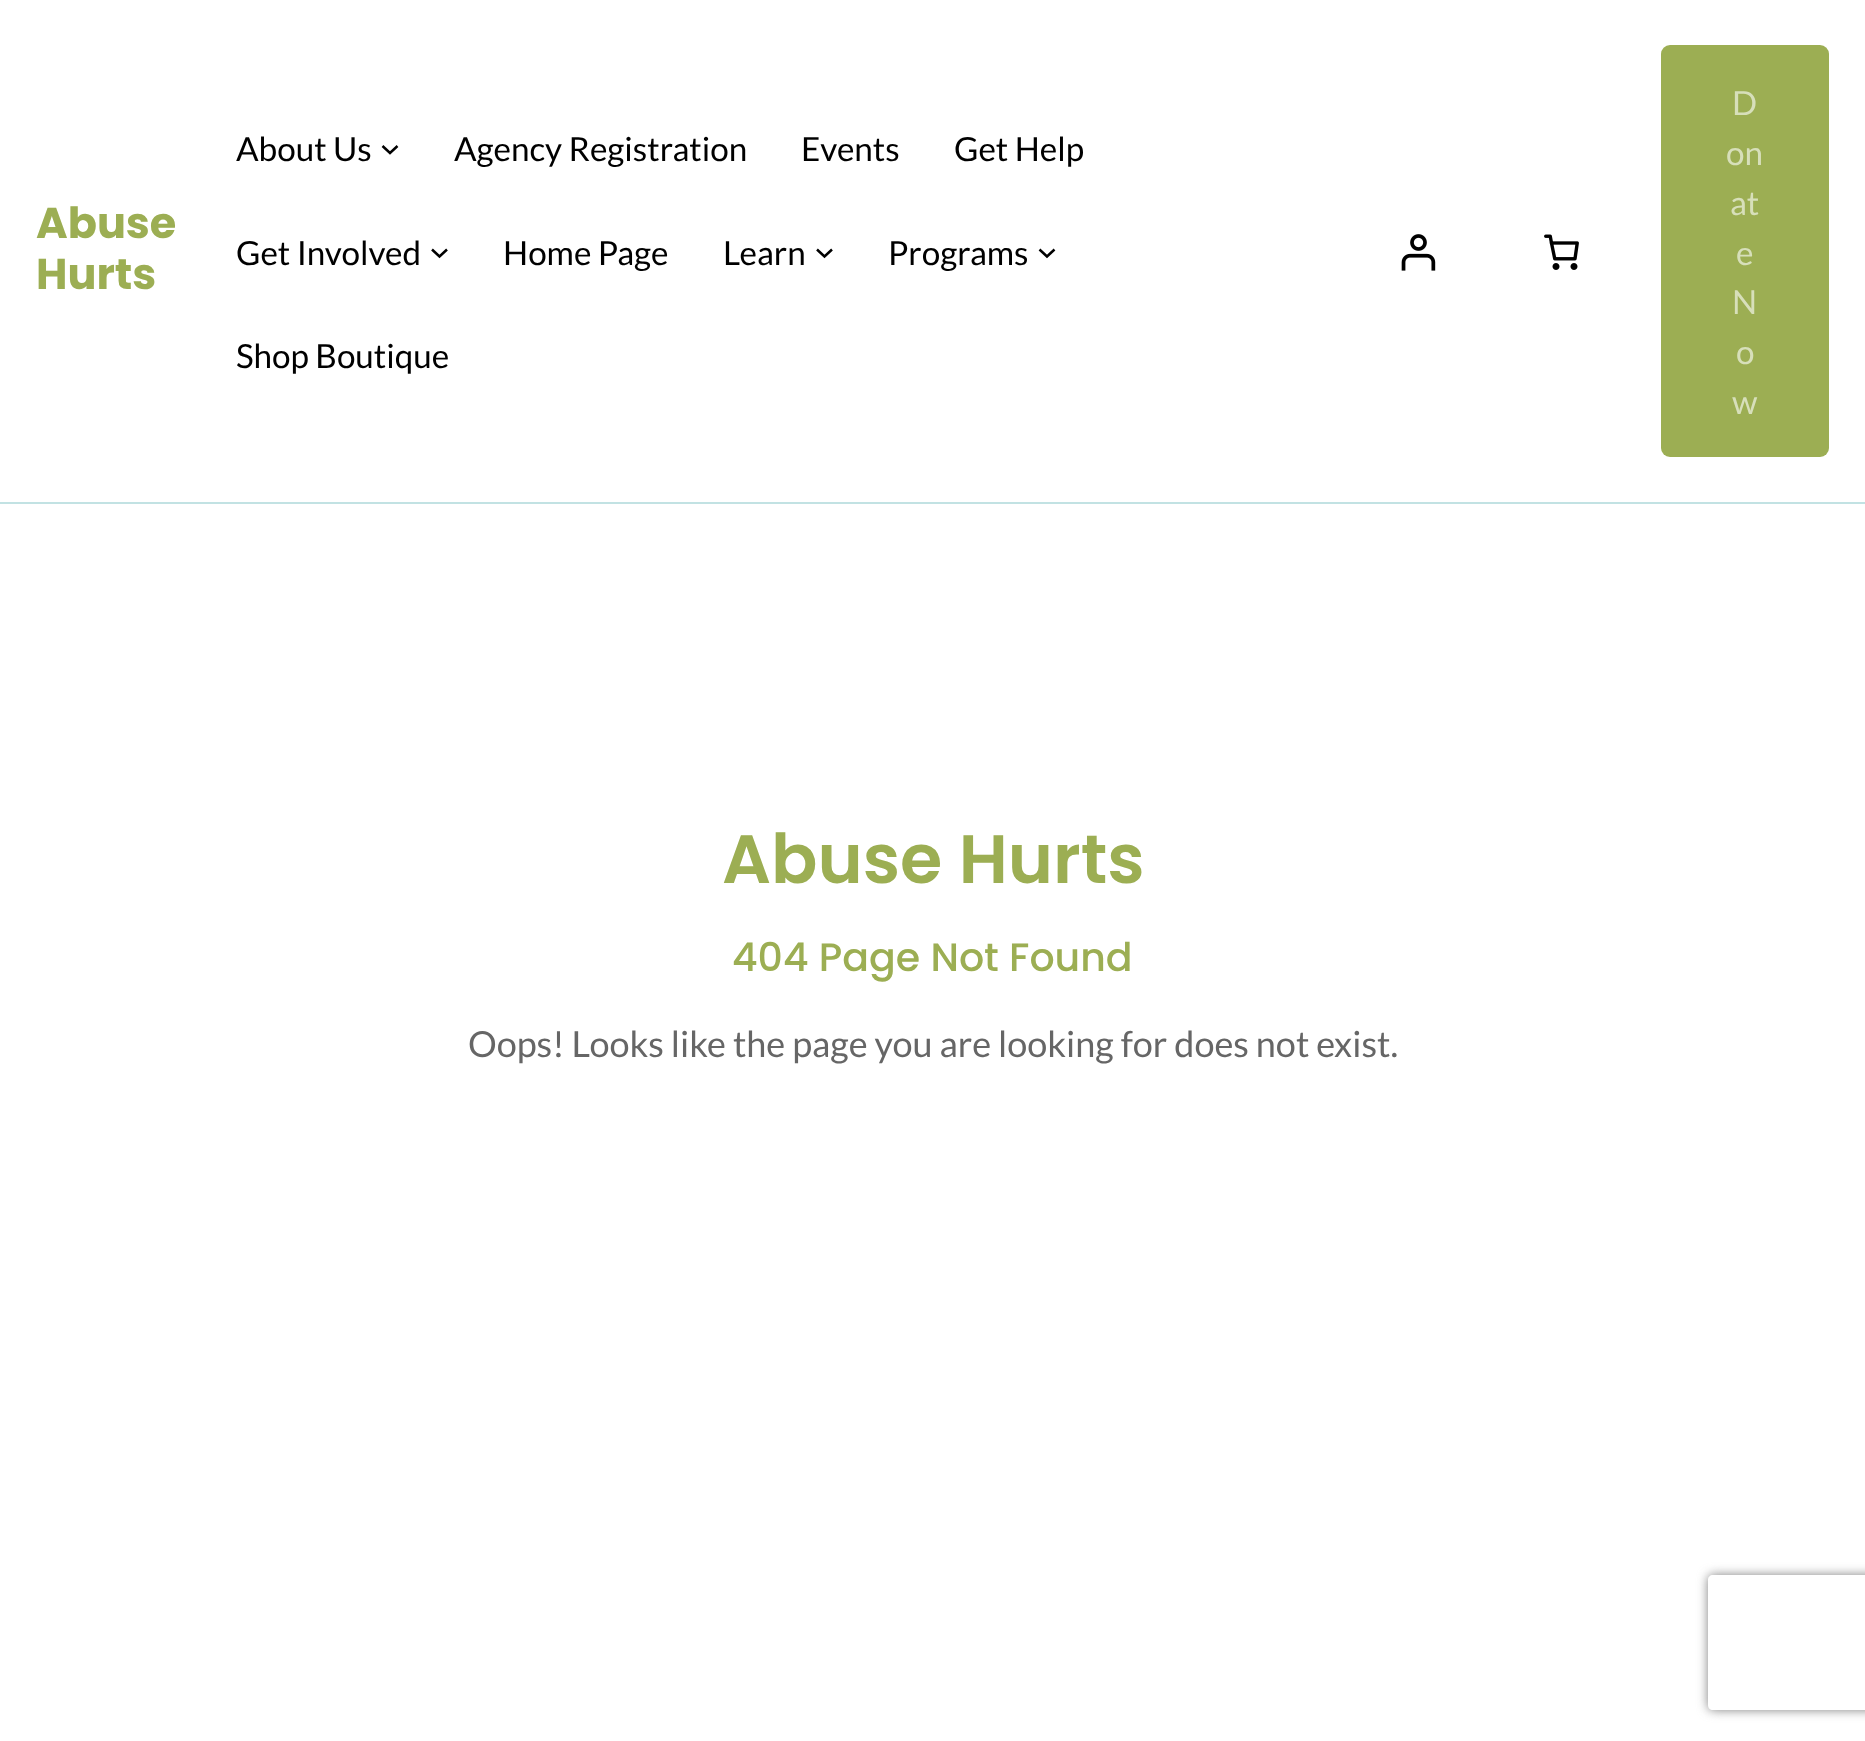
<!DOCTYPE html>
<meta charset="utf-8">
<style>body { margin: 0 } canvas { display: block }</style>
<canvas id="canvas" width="1865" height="1741"></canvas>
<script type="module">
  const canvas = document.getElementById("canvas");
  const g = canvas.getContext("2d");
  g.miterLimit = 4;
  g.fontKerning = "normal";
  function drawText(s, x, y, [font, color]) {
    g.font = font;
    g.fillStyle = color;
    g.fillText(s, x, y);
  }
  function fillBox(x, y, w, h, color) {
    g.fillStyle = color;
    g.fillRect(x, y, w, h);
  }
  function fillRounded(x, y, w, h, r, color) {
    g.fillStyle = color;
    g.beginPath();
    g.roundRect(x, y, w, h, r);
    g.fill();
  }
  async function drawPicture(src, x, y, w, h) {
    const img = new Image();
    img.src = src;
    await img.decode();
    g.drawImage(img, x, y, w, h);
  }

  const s1 = ["bold 43px Poppins", "#9CAE53"];
  const s2 = ["33.25px Lato", "#000000"];
  const s3 = ["33.25px Lato", "#D7DFBA"];
  const s4 = ["600 68.5px Poppins", "#9CAE53"];
  const s5 = ["500 39.5px Poppins", "#9CAE53"];
  const s6 = ["36px Lato", "#666666"];

  fillBox(0, 0, 1865, 1741, "#FFFFFF");
  fillBox(0, 502, 1865, 2, "#C2E2E3");
  drawText("Abuse", 36, 238, s1);
  drawText("Hurts", 36, 289, s1);
  drawText("About Us", 236, 161, s2);
  g.beginPath();
  g.moveTo(382.5, 146);
  g.lineTo(390, 153);
  g.lineTo(397.5, 146);
  g.strokeStyle = "#000000";
  g.lineWidth = 2.5;
  g.stroke();
  drawText("Agency Registration", 454, 161, s2);
  drawText("Events", 801, 161, s2);
  drawText("Get Help", 954, 161, s2);
  drawText("Get Involved", 236, 265, s2);
  g.beginPath();
  g.moveTo(432, 249.5);
  g.lineTo(439.5, 256.5);
  g.lineTo(447, 249.5);
  g.stroke();
  drawText("Home Page", 503, 265, s2);
  drawText("Learn", 723, 265, s2);
  g.beginPath();
  g.moveTo(817, 249.5);
  g.lineTo(824.5, 256.5);
  g.lineTo(832, 249.5);
  g.stroke();
  drawText("Programs", 888, 265, s2);
  g.beginPath();
  g.moveTo(1039.5, 249.5);
  g.lineTo(1047, 256.5);
  g.lineTo(1054.5, 249.5);
  g.stroke();
  drawText("Shop Boutique", 236, 368, s2);
  await drawPicture("pic1.png", 1401, 234, 35, 37);
  await drawPicture("pic2.png", 1544, 234, 35, 36);
  fillRounded(1661, 45, 168, 412, 9, "#9CAE53");
  drawText("D", 1732, 115, s3);
  drawText("on", 1726, 165, s3);
  drawText("at", 1730, 215, s3);
  drawText("e", 1736, 265, s3);
  drawText("N", 1732, 314, s3);
  drawText("o", 1736, 364, s3);
  drawText("w", 1732, 414, s3);
  drawText("Abuse Hurts", 722, 883, s4);
  drawText("404 Page Not Found", 732, 971, s5);
  drawText("Oops! Looks like the page you are looking for does not exist.", 468, 1057, s6);
  g.save();
  g.beginPath();
  g.moveTo(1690, 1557);
  g.lineTo(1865, 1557);
  g.lineTo(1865, 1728);
  g.lineTo(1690, 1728);
  g.closePath();
  g.moveTo(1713, 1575);
  g.lineTo(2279, 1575);
  g.bezierCurveTo(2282, 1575, 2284, 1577, 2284, 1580);
  g.lineTo(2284, 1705);
  g.bezierCurveTo(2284, 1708, 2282, 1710, 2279, 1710);
  g.lineTo(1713, 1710);
  g.bezierCurveTo(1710, 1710, 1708, 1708, 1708, 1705);
  g.lineTo(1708, 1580);
  g.bezierCurveTo(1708, 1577, 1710, 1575, 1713, 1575);
  g.closePath();
  g.clip("evenodd");
  g.fillStyle = "#808080";
  g.filter = "blur(5.5px)";
  g.beginPath();
  g.roundRect(1708, 1575, 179, 135, 5);
  g.fill();
  g.filter = "none";
  g.restore();
</script>
